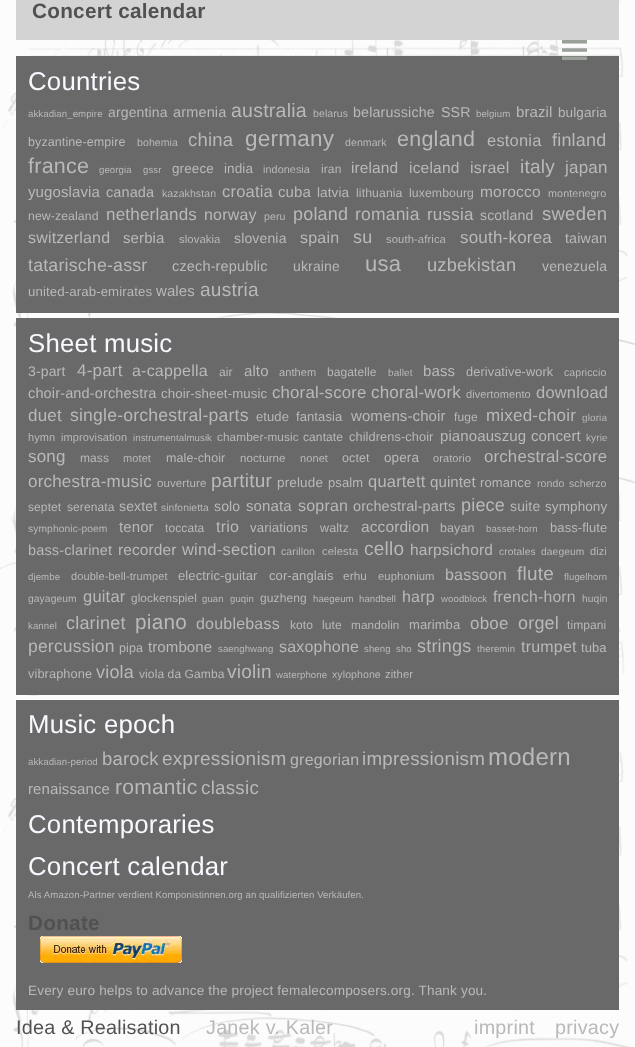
<!DOCTYPE html>
<meta charset="utf-8">
<style>body { margin: 0 } canvas { display: block }</style>
<canvas id="canvas" width="635" height="1047"></canvas>
<script type="module">
  const canvas = document.getElementById("canvas");
  const g = canvas.getContext("2d");
  g.miterLimit = 4;
  g.fontKerning = "normal";
  function drawText(s, x, y, [font, color]) {
    g.font = font;
    g.fillStyle = color;
    g.fillText(s, x, y);
  }
  function fillBox(x, y, w, h, color) {
    g.fillStyle = color;
    g.fillRect(x, y, w, h);
  }
  async function drawPicture(src, x, y, w, h) {
    const img = new Image();
    img.src = src;
    await img.decode();
    g.drawImage(img, x, y, w, h);
  }

  const s1 = ["bold 20.75px Liberation Sans", "#515151"];
  const s2 = ["25.75px Liberation Sans", "#F8F8FF"];
  const s3 = ["9.6px Liberation Sans", "#B9B9B9"];
  const s4 = ["14px Liberation Sans", "#B9B9B9"];
  const s5 = ["14.5px Liberation Sans", "#B9B9B9"];
  const s6 = ["19.5px Liberation Sans", "#B9B9B9"];
  const s7 = ["10.5px Liberation Sans", "#B9B9B9"];
  const s8 = ["14.25px Liberation Sans", "#B9B9B9"];
  const s9 = ["15px Liberation Sans", "#B9B9B9"];
  const s10 = ["13.5px Liberation Sans", "#B9B9B9"];
  const s11 = ["12.5px Liberation Sans", "#B9B9B9"];
  const s12 = ["18.5px Liberation Sans", "#B9B9B9"];
  const s13 = ["22.5px Liberation Sans", "#B9B9B9"];
  const s14 = ["21.5px Liberation Sans", "#B9B9B9"];
  const s15 = ["16.5px Liberation Sans", "#B9B9B9"];
  const s16 = ["18px Liberation Sans", "#B9B9B9"];
  const s17 = ["10.75px Liberation Sans", "#B9B9B9"];
  const s18 = ["12px Liberation Sans", "#B9B9B9"];
  const s19 = ["15.5px Liberation Sans", "#B9B9B9"];
  const s20 = ["16px Liberation Sans", "#B9B9B9"];
  const s21 = ["19px Liberation Sans", "#B9B9B9"];
  const s22 = ["17px Liberation Sans", "#B9B9B9"];
  const s23 = ["12.25px Liberation Sans", "#B9B9B9"];
  const s24 = ["17.5px Liberation Sans", "#B9B9B9"];
  const s25 = ["11.25px Liberation Sans", "#B9B9B9"];
  const s26 = ["17.75px Liberation Sans", "#B9B9B9"];
  const s27 = ["22px Liberation Sans", "#B9B9B9"];
  const s28 = ["18.25px Liberation Sans", "#B9B9B9"];
  const s29 = ["13.25px Liberation Sans", "#B9B9B9"];
  const s30 = ["11px Liberation Sans", "#B9B9B9"];
  const s31 = ["10px Liberation Sans", "#B9B9B9"];
  const s32 = ["12.75px Liberation Sans", "#B9B9B9"];
  const s33 = ["16.75px Liberation Sans", "#B9B9B9"];
  const s34 = ["17.6px Liberation Sans", "#B9B9B9"];
  const s35 = ["13px Liberation Sans", "#B9B9B9"];
  const s36 = ["11.75px Liberation Sans", "#B9B9B9"];
  const s37 = ["11.5px Liberation Sans", "#B9B9B9"];
  const s38 = ["10.25px Liberation Sans", "#B9B9B9"];
  const s39 = ["15.75px Liberation Sans", "#B9B9B9"];
  const s40 = ["20.75px Liberation Sans", "#B9B9B9"];
  const s41 = ["18.75px Liberation Sans", "#B9B9B9"];
  const s42 = ["24px Liberation Sans", "#B9B9B9"];
  const s43 = ["21px Liberation Sans", "#B9B9B9"];
  const s44 = ["13.6px Liberation Sans", "#B9B9B9"];
  const s45 = ["19.75px Liberation Sans", "#515151"];
  const s46 = ["19.75px Liberation Sans", "#B9B9B9"];

  fillBox(0, 0, 635, 1047, "#FFFFFF");
  await drawPicture("pic1.png", 0, 0, 635, 1047);
  fillBox(16, 0, 603, 40, "#D3D3D3");
  g.letterSpacing = "0.25px";
  drawText("Concert calendar", 32, 18, s1);
  fillBox(16, 56, 603, 257, "#696969");
  await drawPicture("pic2.png", 562, 40, 25, 20);
  drawText("Countries", 28, 90, s2);
  g.letterSpacing = "0.1px";
  drawText("akkadian_empire", 28, 117, s3);
  g.letterSpacing = "0.15px";
  drawText("argentina", 108, 117, s4);
  drawText("armenia", 173, 117, s5);
  g.letterSpacing = "0.25px";
  drawText("australia", 231, 117, s6);
  g.letterSpacing = "0.1px";
  drawText("belarus", 313, 117, s7);
  g.letterSpacing = "0.15px";
  g.wordSpacing = "2px";
  drawText("belarussiche SSR", 353, 117, s8);
  g.letterSpacing = "0.1px";
  g.wordSpacing = "0px";
  drawText("belgium", 476, 117, s3);
  drawText("brazil", 516, 117, s9);
  drawText("bulgaria", 558, 117, s10);
  drawText("byzantine-empire", 28, 146, s11);
  drawText("bohemia", 137, 146, s7);
  g.letterSpacing = "0.2px";
  drawText("china", 188, 146, s12);
  g.letterSpacing = "0.25px";
  drawText("germany", 245, 146, s13);
  g.letterSpacing = "0.1px";
  drawText("denmark", 345, 146, s7);
  g.letterSpacing = "0.25px";
  drawText("england", 397, 146, s14);
  g.letterSpacing = "0.2px";
  drawText("estonia", 487, 146, s15);
  drawText("finland", 552, 146, s16);
  g.letterSpacing = "0.25px";
  drawText("france", 28, 173, s14);
  g.letterSpacing = "0.1px";
  drawText("georgia", 99, 173, s3);
  drawText("gssr", 143, 173, s3);
  drawText("greece", 172, 173, s10);
  drawText("india", 224, 173, s10);
  drawText("indonesia", 263, 173, s17);
  drawText("iran", 321, 173, s18);
  drawText("ireland", 351, 173, s19);
  g.letterSpacing = "0.2px";
  drawText("iceland", 409, 173, s19);
  drawText("israel", 470, 173, s20);
  g.letterSpacing = "0.25px";
  drawText("italy", 520, 173, s21);
  g.letterSpacing = "0.2px";
  drawText("japan", 565, 173, s22);
  g.letterSpacing = "0.1px";
  drawText("yugoslavia", 28, 197, s9);
  drawText("canada", 106, 197, s5);
  drawText("kazakhstan", 162, 197, s7);
  g.letterSpacing = "0.2px";
  drawText("croatia", 222, 197, s15);
  g.letterSpacing = "0.1px";
  drawText("cuba", 278, 197, s9);
  drawText("latvia", 317, 197, s10);
  drawText("lithuania", 356, 197, s23);
  drawText("luxembourg", 409, 197, s23);
  g.letterSpacing = "0.2px";
  drawText("morocco", 480, 197, s19);
  g.letterSpacing = "0.1px";
  drawText("montenegro", 548, 197, s17);
  drawText("new-zealand", 28, 220, s23);
  g.letterSpacing = "0.2px";
  drawText("netherlands", 106, 220, s22);
  drawText("norway", 204, 220, s20);
  g.letterSpacing = "0.1px";
  drawText("peru", 264, 220, s7);
  g.letterSpacing = "0.2px";
  drawText("poland", 293, 220, s16);
  drawText("romania", 355, 220, s24);
  drawText("russia", 427, 220, s22);
  g.letterSpacing = "0.15px";
  drawText("scotland", 480, 220, s4);
  g.letterSpacing = "0.25px";
  drawText("sweden", 542, 220, s12);
  g.letterSpacing = "0.2px";
  drawText("switzerland", 28, 243, s20);
  g.letterSpacing = "0.1px";
  drawText("serbia", 123, 243, s9);
  drawText("slovakia", 179, 243, s25);
  g.letterSpacing = "0.15px";
  drawText("slovenia", 234, 243, s4);
  g.letterSpacing = "0.2px";
  drawText("spain", 300, 243, s20);
  drawText("su", 353, 243, s16);
  g.letterSpacing = "0.1px";
  drawText("south-africa", 386, 243, s25);
  g.letterSpacing = "0.2px";
  drawText("south-korea", 460, 243, s22);
  g.letterSpacing = "0.15px";
  drawText("taiwan", 565, 243, s8);
  g.letterSpacing = "0.2px";
  drawText("tatarische-assr", 28, 271, s26);
  g.letterSpacing = "0.15px";
  drawText("czech-republic", 172, 271, s5);
  drawText("ukraine", 293, 271, s4);
  g.letterSpacing = "0.25px";
  drawText("usa", 365, 271, s27);
  g.letterSpacing = "0.2px";
  drawText("uzbekistan", 427, 271, s28);
  g.letterSpacing = "0.15px";
  drawText("venezuela", 542, 271, s4);
  g.letterSpacing = "0.1px";
  drawText("united-arab-emirates", 28, 296, s29);
  drawText("wales", 156, 296, s9);
  g.letterSpacing = "0.25px";
  drawText("austria", 200, 296, s21);
  fillBox(16, 318, 603, 377, "#696969");
  drawText("Sheet music", 28, 352, s2);
  g.letterSpacing = "0.15px";
  drawText("3-part", 28, 376, s4);
  g.letterSpacing = "0.2px";
  drawText("4-part", 77, 376, s22);
  drawText("a-cappella", 132, 376, s20);
  g.letterSpacing = "0.1px";
  drawText("air", 219, 376, s18);
  drawText("alto", 244, 376, s9);
  drawText("anthem", 279, 376, s30);
  drawText("bagatelle", 327, 376, s18);
  drawText("ballet", 388, 376, s31);
  drawText("bass", 423, 376, s9);
  drawText("derivative-work", 466, 376, s32);
  drawText("capriccio", 564, 376, s7);
  g.letterSpacing = "0.15px";
  drawText("choir-and-orchestra", 28, 398, s5);
  g.letterSpacing = "0.1px";
  drawText("choir-sheet-music", 161, 398, s29);
  g.letterSpacing = "0.2px";
  drawText("choral-score", 272, 398, s33);
  drawText("choral-work", 371, 398, s22);
  g.letterSpacing = "0.1px";
  drawText("divertomento", 466, 398, s30);
  g.letterSpacing = "0.2px";
  drawText("download", 536, 398, s15);
  drawText("duet", 28, 421, s22);
  drawText("single-orchestral-parts", 70, 421, s34);
  g.letterSpacing = "0.1px";
  drawText("etude", 256, 421, s35);
  drawText("fantasia", 296, 421, s35);
  drawText("womens-choir", 351, 421, s9);
  drawText("fuge", 454, 421, s18);
  g.letterSpacing = "0.2px";
  drawText("mixed-choir", 486, 421, s22);
  g.letterSpacing = "0.1px";
  drawText("gloria", 582, 421, s31);
  drawText("hymn", 28, 441, s30);
  drawText("improvisation", 61, 441, s30);
  drawText("instrumentalmusik", 133, 441, s3);
  drawText("chamber-music", 217, 441, s36);
  drawText("cantate", 303, 441, s18);
  drawText("childrens-choir", 349, 441, s32);
  drawText("pianoauszug", 440, 441, s9);
  drawText("concert", 531, 441, s9);
  drawText("kyrie", 586, 441, s31);
  g.letterSpacing = "0.2px";
  drawText("song", 28, 462, s22);
  g.letterSpacing = "0.1px";
  drawText("mass", 80, 462, s18);
  drawText("motet", 123, 462, s30);
  drawText("male-choir", 166, 462, s11);
  drawText("nocturne", 240, 462, s37);
  drawText("nonet", 300, 462, s30);
  drawText("octet", 342, 462, s11);
  drawText("opera", 384, 462, s10);
  drawText("oratorio", 433, 462, s30);
  g.letterSpacing = "0.2px";
  drawText("orchestral-score", 484, 462, s33);
  drawText("orchestra-music", 28, 487, s22);
  g.letterSpacing = "0.1px";
  drawText("ouverture", 157, 487, s37);
  g.letterSpacing = "0.25px";
  drawText("partitur", 211, 487, s21);
  g.letterSpacing = "0.15px";
  drawText("prelude", 277, 487, s10);
  g.letterSpacing = "0.1px";
  drawText("psalm", 328, 487, s35);
  g.letterSpacing = "0.2px";
  drawText("quartett", 368, 487, s15);
  g.letterSpacing = "0.1px";
  drawText("quintet", 430, 487, s9);
  drawText("romance", 480, 487, s35);
  drawText("rondo", 537, 487, s7);
  drawText("scherzo", 569, 487, s7);
  drawText("septet", 28, 511, s18);
  drawText("serenata", 67, 511, s18);
  g.letterSpacing = "0.15px";
  drawText("sextet", 119, 511, s4);
  g.letterSpacing = "0.1px";
  drawText("sinfonietta", 161, 511, s38);
  g.letterSpacing = "0.15px";
  drawText("solo", 214, 511, s4);
  g.letterSpacing = "0.1px";
  drawText("sonata", 246, 511, s9);
  g.letterSpacing = "0.2px";
  drawText("sopran", 298, 511, s20);
  g.letterSpacing = "0.1px";
  drawText("orchestral-parts", 353, 511, s5);
  g.letterSpacing = "0.2px";
  drawText("piece", 461, 511, s16);
  g.letterSpacing = "0.15px";
  drawText("suite", 510, 511, s4);
  g.letterSpacing = "0.1px";
  drawText("symphony", 545, 511, s10);
  drawText("symphonic-poem", 28, 532, s38);
  drawText("tenor", 119, 532, s9);
  drawText("toccata", 165, 532, s18);
  g.letterSpacing = "0.2px";
  drawText("trio", 216, 532, s20);
  g.letterSpacing = "0.1px";
  drawText("variations", 250, 532, s29);
  drawText("waltz", 320, 532, s11);
  drawText("accordion", 361, 532, s19);
  drawText("bayan", 440, 532, s11);
  drawText("basset-horn", 486, 532, s3);
  drawText("bass-flute", 550, 532, s35);
  g.letterSpacing = "0.15px";
  drawText("bass-clarinet", 28, 555, s5);
  g.letterSpacing = "0.1px";
  drawText("recorder", 118, 555, s19);
  g.letterSpacing = "0.2px";
  drawText("wind-section", 182, 555, s15);
  g.letterSpacing = "0.1px";
  drawText("carillon", 281, 555, s7);
  drawText("celesta", 322, 555, s25);
  g.letterSpacing = "0.25px";
  drawText("cello", 364, 555, s21);
  g.letterSpacing = "0.2px";
  drawText("harpsichord", 410, 555, s19);
  g.letterSpacing = "0.1px";
  drawText("crotales", 499, 555, s38);
  drawText("daegeum", 541, 555, s38);
  drawText("dizi", 590, 555, s30);
  drawText("djembe", 28, 580, s3);
  drawText("double-bell-trumpet", 71, 580, s30);
  drawText("electric-guitar", 178, 580, s35);
  drawText("cor-anglais", 269, 580, s35);
  drawText("erhu", 343, 580, s36);
  drawText("euphonium", 378, 580, s25);
  g.letterSpacing = "0.2px";
  drawText("bassoon", 445, 580, s20);
  g.letterSpacing = "0.25px";
  drawText("flute", 517, 580, s21);
  g.letterSpacing = "0.1px";
  drawText("flugelhorn", 564, 580, s3);
  drawText("gayageum", 28, 602, s38);
  g.letterSpacing = "0.2px";
  drawText("guitar", 83, 602, s15);
  g.letterSpacing = "0.1px";
  drawText("glockenspiel", 131, 602, s36);
  drawText("guan", 202, 602, s3);
  drawText("guqin", 230, 602, s3);
  drawText("guzheng", 260, 602, s18);
  drawText("haegeum", 313, 602, s3);
  drawText("handbell", 359, 602, s3);
  g.letterSpacing = "0.2px";
  drawText("harp", 402, 602, s20);
  g.letterSpacing = "0.1px";
  drawText("woodblock", 441, 602, s3);
  g.letterSpacing = "0.2px";
  drawText("french-horn", 493, 602, s39);
  g.letterSpacing = "0.1px";
  drawText("huqin", 582, 602, s38);
  drawText("kannel", 28, 629, s3);
  g.letterSpacing = "0.2px";
  drawText("clarinet", 66, 629, s16);
  g.letterSpacing = "0.25px";
  drawText("piano", 135, 629, s40);
  g.letterSpacing = "0.2px";
  drawText("doublebass", 196, 629, s20);
  g.letterSpacing = "0.1px";
  drawText("koto", 290, 629, s18);
  drawText("lute", 322, 629, s18);
  drawText("mandolin", 351, 629, s36);
  drawText("marimba", 409, 629, s35);
  g.letterSpacing = "0.2px";
  drawText("oboe", 470, 629, s22);
  drawText("orgel", 518, 629, s16);
  g.letterSpacing = "0.1px";
  drawText("timpani", 567, 629, s18);
  g.letterSpacing = "0.2px";
  drawText("percussion", 28, 652, s24);
  g.letterSpacing = "0.1px";
  drawText("pipa", 119, 652, s11);
  drawText("trombone", 148, 652, s9);
  drawText("saenghwang", 218, 652, s3);
  g.letterSpacing = "0.2px";
  drawText("saxophone", 279, 652, s20);
  g.letterSpacing = "0.1px";
  drawText("sheng", 364, 652, s3);
  drawText("sho", 396, 652, s3);
  g.letterSpacing = "0.2px";
  drawText("strings", 417, 652, s16);
  g.letterSpacing = "0.1px";
  drawText("theremin", 477, 652, s3);
  g.letterSpacing = "0.2px";
  drawText("trumpet", 521, 652, s20);
  g.letterSpacing = "0.1px";
  drawText("tuba", 581, 652, s35);
  drawText("vibraphone", 28, 678, s32);
  g.letterSpacing = "0.2px";
  drawText("viola", 96, 678, s16);
  g.letterSpacing = "0.1px";
  drawText("viola da Gamba", 139, 678, s18);
  g.letterSpacing = "0.25px";
  drawText("violin", 227, 678, s21);
  g.letterSpacing = "0.1px";
  drawText("waterphone", 276, 678, s3);
  drawText("xylophone", 332, 678, s7);
  drawText("zither", 385, 678, s25);
  fillBox(16, 700, 603, 310, "#696969");
  g.letterSpacing = "0.25px";
  drawText("Music epoch", 28, 733, s2);
  g.letterSpacing = "0.1px";
  drawText("akkadian-period", 28, 765, s3);
  g.letterSpacing = "0.2px";
  drawText("barock", 102, 765, s12);
  g.letterSpacing = "0.25px";
  drawText("expressionism", 162, 765, s21);
  g.letterSpacing = "0.2px";
  drawText("gregorian", 290, 765, s20);
  g.letterSpacing = "0.25px";
  drawText("impressionism", 362, 765, s41);
  drawText("modern", 488, 765, s42);
  g.letterSpacing = "0.1px";
  drawText("renaissance", 28, 794, s9);
  g.letterSpacing = "0.25px";
  drawText("romantic", 115, 794, s43);
  drawText("classic", 201, 794, s41);
  drawText("Contemporaries", 28, 833, s2);
  drawText("Concert calendar", 28, 875, s2);
  g.letterSpacing = "0.1px";
  drawText("Als Amazon-Partner verdient Komponistinnen.org an qualifizierten Verkäufen.", 28, 898, s3);
  g.letterSpacing = "0.25px";
  drawText("Donate", 28, 930, s1);
  await drawPicture("pic3.png", 40, 936, 142, 27);
  g.letterSpacing = "0.15px";
  drawText("Every euro helps to advance the project femalecomposers.org. Thank you.", 28, 995, s44);
  g.letterSpacing = "0.25px";
  drawText("Idea & Realisation", 16, 1034, s45);
  drawText("Janek v. Kaler", 206, 1034, s46);
  drawText("imprint", 474, 1034, s46);
  drawText("privacy", 555, 1034, s46);
</script>
